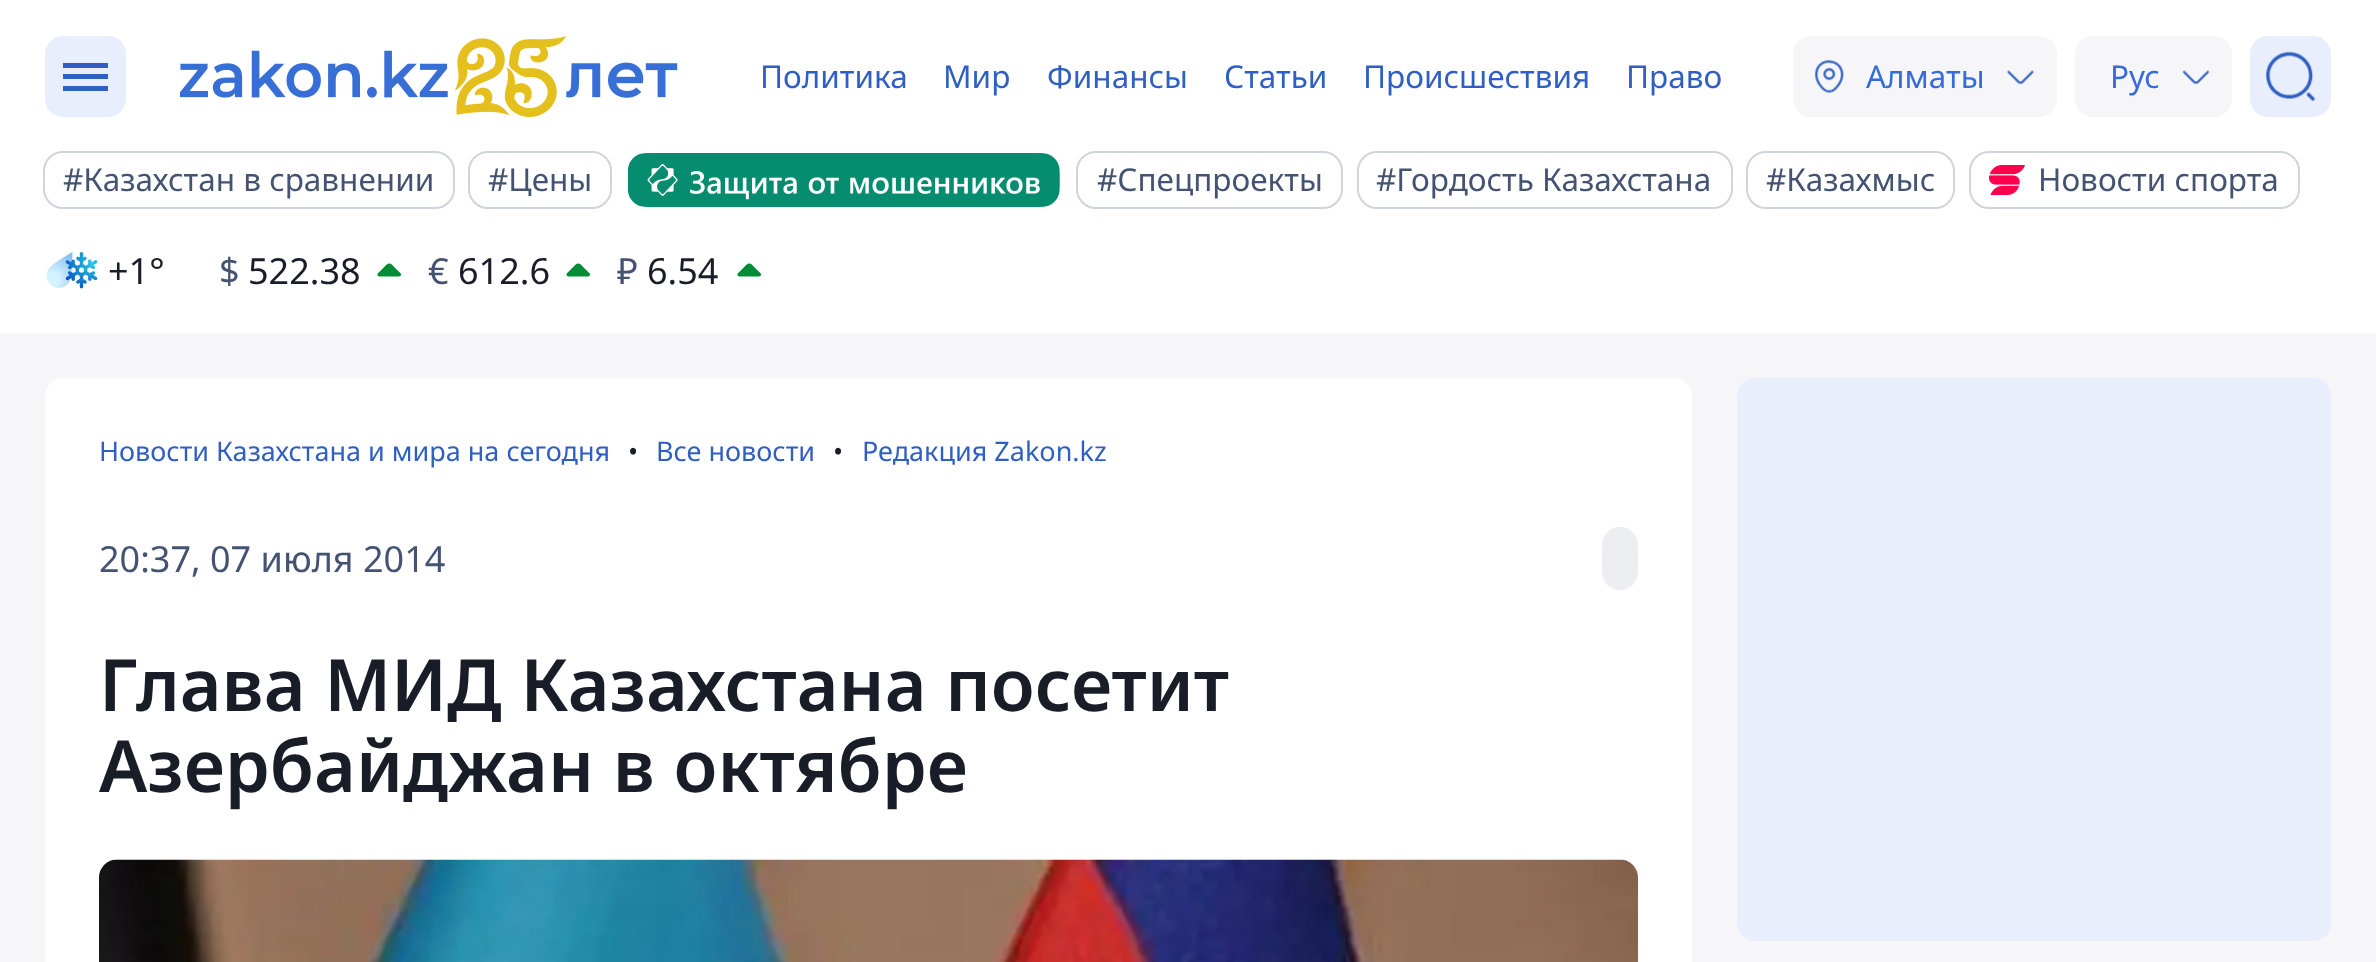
<!DOCTYPE html>
<meta charset="utf-8">
<style>body { margin: 0 } canvas { display: block }</style>
<canvas id="canvas" width="2376" height="962"></canvas>
<script type="module">
  const canvas = document.getElementById("canvas");
  const g = canvas.getContext("2d");
  g.miterLimit = 4;
  g.fontKerning = "normal";
  function drawText(s, x, y, [font, color]) {
    g.font = font;
    g.fillStyle = color;
    g.fillText(s, x, y);
  }
  function fillBox(x, y, w, h, color) {
    g.fillStyle = color;
    g.fillRect(x, y, w, h);
  }
  function fillRounded(x, y, w, h, r, color) {
    g.fillStyle = color;
    g.beginPath();
    g.roundRect(x, y, w, h, r);
    g.fill();
  }
  async function drawPicture(src, x, y, w, h) {
    const img = new Image();
    img.src = src;
    await img.decode();
    g.drawImage(img, x, y, w, h);
  }

  const s1 = ["31.5px Noto Sans", "#2F5FC2"];
  const s2 = ["31.5px Noto Sans", "#356BDB"];
  const s3 = ["31.5px Noto Sans", "#445371"];
  const s4 = ["36px Noto Sans", "#181D28"];
  const s5 = ["36px Noto Sans", "#445371"];
  const s6 = ["27px Noto Sans", "#2F5FC2"];
  const s7 = ["27px Noto Sans", "#181D28"];
  const s8 = ["600 72px Noto Sans", "#181D28"];

  fillBox(0, 0, 2376, 962, "#F6F6F8");
  fillBox(0, 0, 2376, 333, "#FFFFFF");
  fillRounded(45, 36, 81, 81, 18, "#E8EEFB");
  fillBox(63, 63, 45, 5, "#2F5FC2");
  fillBox(63, 74, 45, 5, "#2F5FC2");
  fillBox(63, 86, 45, 5, "#2F5FC2");
  await drawPicture("pic1.png", 180, 36, 498, 81);
  drawText("Политика", 760, 88, s1);
  drawText("Мир", 943, 88, s1);
  drawText("Финансы", 1047, 88, s1);
  drawText("Статьи", 1224, 88, s1);
  drawText("Происшествия", 1363, 88, s1);
  drawText("Право", 1626, 88, s1);
  fillRounded(1793, 36, 264, 81, 18, "#F6F6F8");
  await drawPicture("pic2.png", 1815, 59, 29, 34);
  drawText("Алматы", 1866, 88, s2);
  await drawPicture("pic3.png", 2007, 70, 27, 15);
  fillRounded(2075, 36, 157, 81, 18, "#F6F6F8");
  drawText("Рус", 2110, 88, s2);
  await drawPicture("pic4.png", 2182, 70, 28, 15);
  fillRounded(2250, 36, 81, 81, 18, "#E8EEFB");
  await drawPicture("pic5.png", 2266, 51, 50, 51);
  g.beginPath();
  g.roundRect(44, 152, 410, 56, 19);
  g.strokeStyle = "#D0D4DC";
  g.lineWidth = 2;
  g.stroke();
  drawText("#Казахстан в сравнении", 63, 191, s3);
  g.beginPath();
  g.roundRect(469, 152, 142, 56, 19);
  g.stroke();
  drawText("#Цены", 488, 191, s3);
  await drawPicture("pic6.png", 628, 153, 432, 54);
  g.beginPath();
  g.roundRect(1077, 152, 265, 56, 19);
  g.stroke();
  drawText("#Спецпроекты", 1097, 191, s3);
  g.beginPath();
  g.roundRect(1358, 152, 374, 56, 19);
  g.stroke();
  drawText("#Гордость Казахстана", 1376, 191, s3);
  g.beginPath();
  g.roundRect(1747, 152, 207, 56, 19);
  g.stroke();
  drawText("#Казахмыс", 1766, 191, s3);
  await drawPicture("pic7.png", 1989, 165, 36, 30);
  g.beginPath();
  g.roundRect(1970, 152, 329, 56, 19);
  g.stroke();
  drawText("Новости спорта", 2038, 191, s3);
  await drawPicture("pic8.png", 46, 252, 52, 37);
  drawText("+1°", 108, 284, s4);
  drawText("$", 219, 284, s5);
  drawText("522.38", 248, 284, s4);
  await drawPicture("pic9.png", 377, 263, 24, 14);
  drawText("€", 428, 284, s5);
  drawText("612.6", 458, 284, s4);
  await drawPicture("pic9.png", 566, 263, 24, 14);
  drawText("₽", 617, 284, s5);
  drawText("6.54", 647, 284, s4);
  await drawPicture("pic9.png", 737, 263, 24, 14);
  fillRounded(45, 378, 1647, 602, 18, "#FFFFFF");
  drawText("Новости Казахстана и мира на сегодня", 99, 461, s6);
  drawText("•", 628, 461, s7);
  drawText("Все новости", 656, 461, s6);
  drawText("•", 833, 461, s7);
  drawText("Редакция Zakon.kz", 862, 461, s6);
  drawText("20:37, 07 июля 2014", 99, 572, s5);
  fillRounded(1602, 527, 36, 63, 18, "#ECEEF1");
  drawText("Глава МИД Казахстана посетит", 99, 711, s8);
  drawText("Азербайджан в октябре", 99, 792, s8);
  await drawPicture("pic10.png", 99, 859, 1539, 103);
  fillRounded(1737, 378, 594, 563, 18, "#E8EEFB");
</script>
